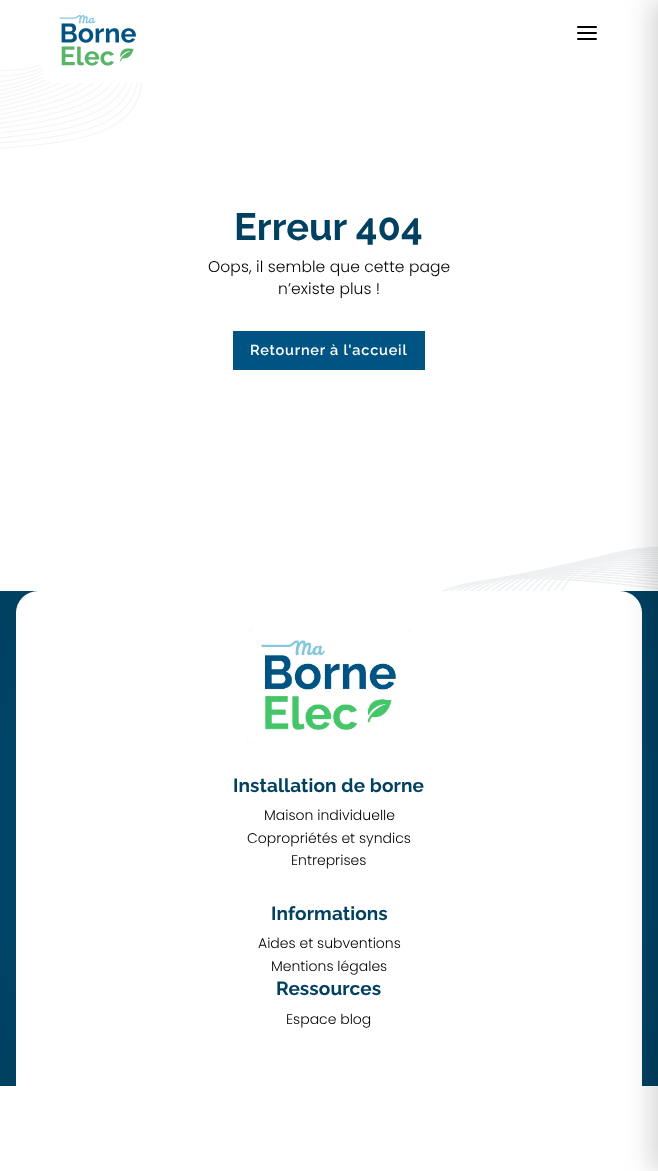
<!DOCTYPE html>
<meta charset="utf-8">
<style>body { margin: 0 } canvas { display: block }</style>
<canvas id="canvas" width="658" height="1171"></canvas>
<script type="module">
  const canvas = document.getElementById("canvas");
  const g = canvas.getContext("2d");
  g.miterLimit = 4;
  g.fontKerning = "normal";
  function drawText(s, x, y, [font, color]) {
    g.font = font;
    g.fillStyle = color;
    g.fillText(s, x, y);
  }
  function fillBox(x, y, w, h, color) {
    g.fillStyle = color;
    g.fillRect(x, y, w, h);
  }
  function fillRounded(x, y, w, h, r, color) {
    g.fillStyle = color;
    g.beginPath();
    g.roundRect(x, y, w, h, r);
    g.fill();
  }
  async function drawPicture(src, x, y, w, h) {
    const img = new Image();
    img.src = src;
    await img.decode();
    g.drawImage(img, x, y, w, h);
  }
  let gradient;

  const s1 = ["bold 38px Raleway", "#004060"];
  const s2 = ["300 15.5px Poppins", "#000000"];
  const s3 = ["600 14.5px Raleway", "#FFFFFF"];
  const s4 = ["bold 19px Raleway", "#004060"];
  const s5 = ["300 14px Poppins", "#000000"];

  fillBox(0, 0, 658, 1171, "#FFFFFF");
  await drawPicture("pic3.png", 0, 65, 658, 526);
  fillRounded(43, 1, 110, 82, 10, "#FFFFFF");
  await drawPicture("pic1.png", 59, 15, 77, 51);
  await drawPicture("pic2.png", 577, 26, 20, 14);
  gradient = g.createRadialGradient(329, 839, 0, 329, 839, 412);
  gradient.addColorStop(0, "#005483");
  gradient.addColorStop(1, "#004060");
  g.fillStyle = gradient;
  g.fillRect(0, 591, 658, 495);
  g.fillStyle = "#FFFFFF";
  g.beginPath();
  g.roundRect(16, 591, 626, 495, [22, 22, 0, 0]);
  g.fill();
  g.fillStyle = "rgba(0, 0, 0, 0.15)";
  g.filter = "blur(12px)";
  g.beginPath();
  g.rect(650, 0, 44, 1171);
  g.fill();
  g.filter = "none";
  g.letterSpacing = "0.1px";
  drawText("Erreur 404", 234, 240, s1);
  drawText("Oops, il semble que cette page", 208, 272, s2);
  drawText("n’existe plus !", 278, 294, s2);
  fillBox(233, 331, 192, 39, "#005483");
  g.letterSpacing = "0.8px";
  drawText("Retourner à l'accueil", 250, 355, s3);
  await drawPicture("pic4.png", 247, 627, 164, 117);
  g.letterSpacing = "0.1px";
  drawText("Installation de borne", 233, 792, s4);
  g.letterSpacing = "0px";
  drawText("Maison individuelle", 264, 820, s5);
  drawText("Copropriétés et syndics", 247, 843, s5);
  drawText("Entreprises", 291, 865, s5);
  g.letterSpacing = "0.1px";
  drawText("Informations", 271, 920, s4);
  g.letterSpacing = "0px";
  drawText("Aides et subventions", 258, 948, s5);
  drawText("Mentions légales", 271, 971, s5);
  g.letterSpacing = "0.1px";
  drawText("Ressources", 276, 995, s4);
  g.letterSpacing = "0px";
  drawText("Espace blog", 286, 1024, s5);
</script>
